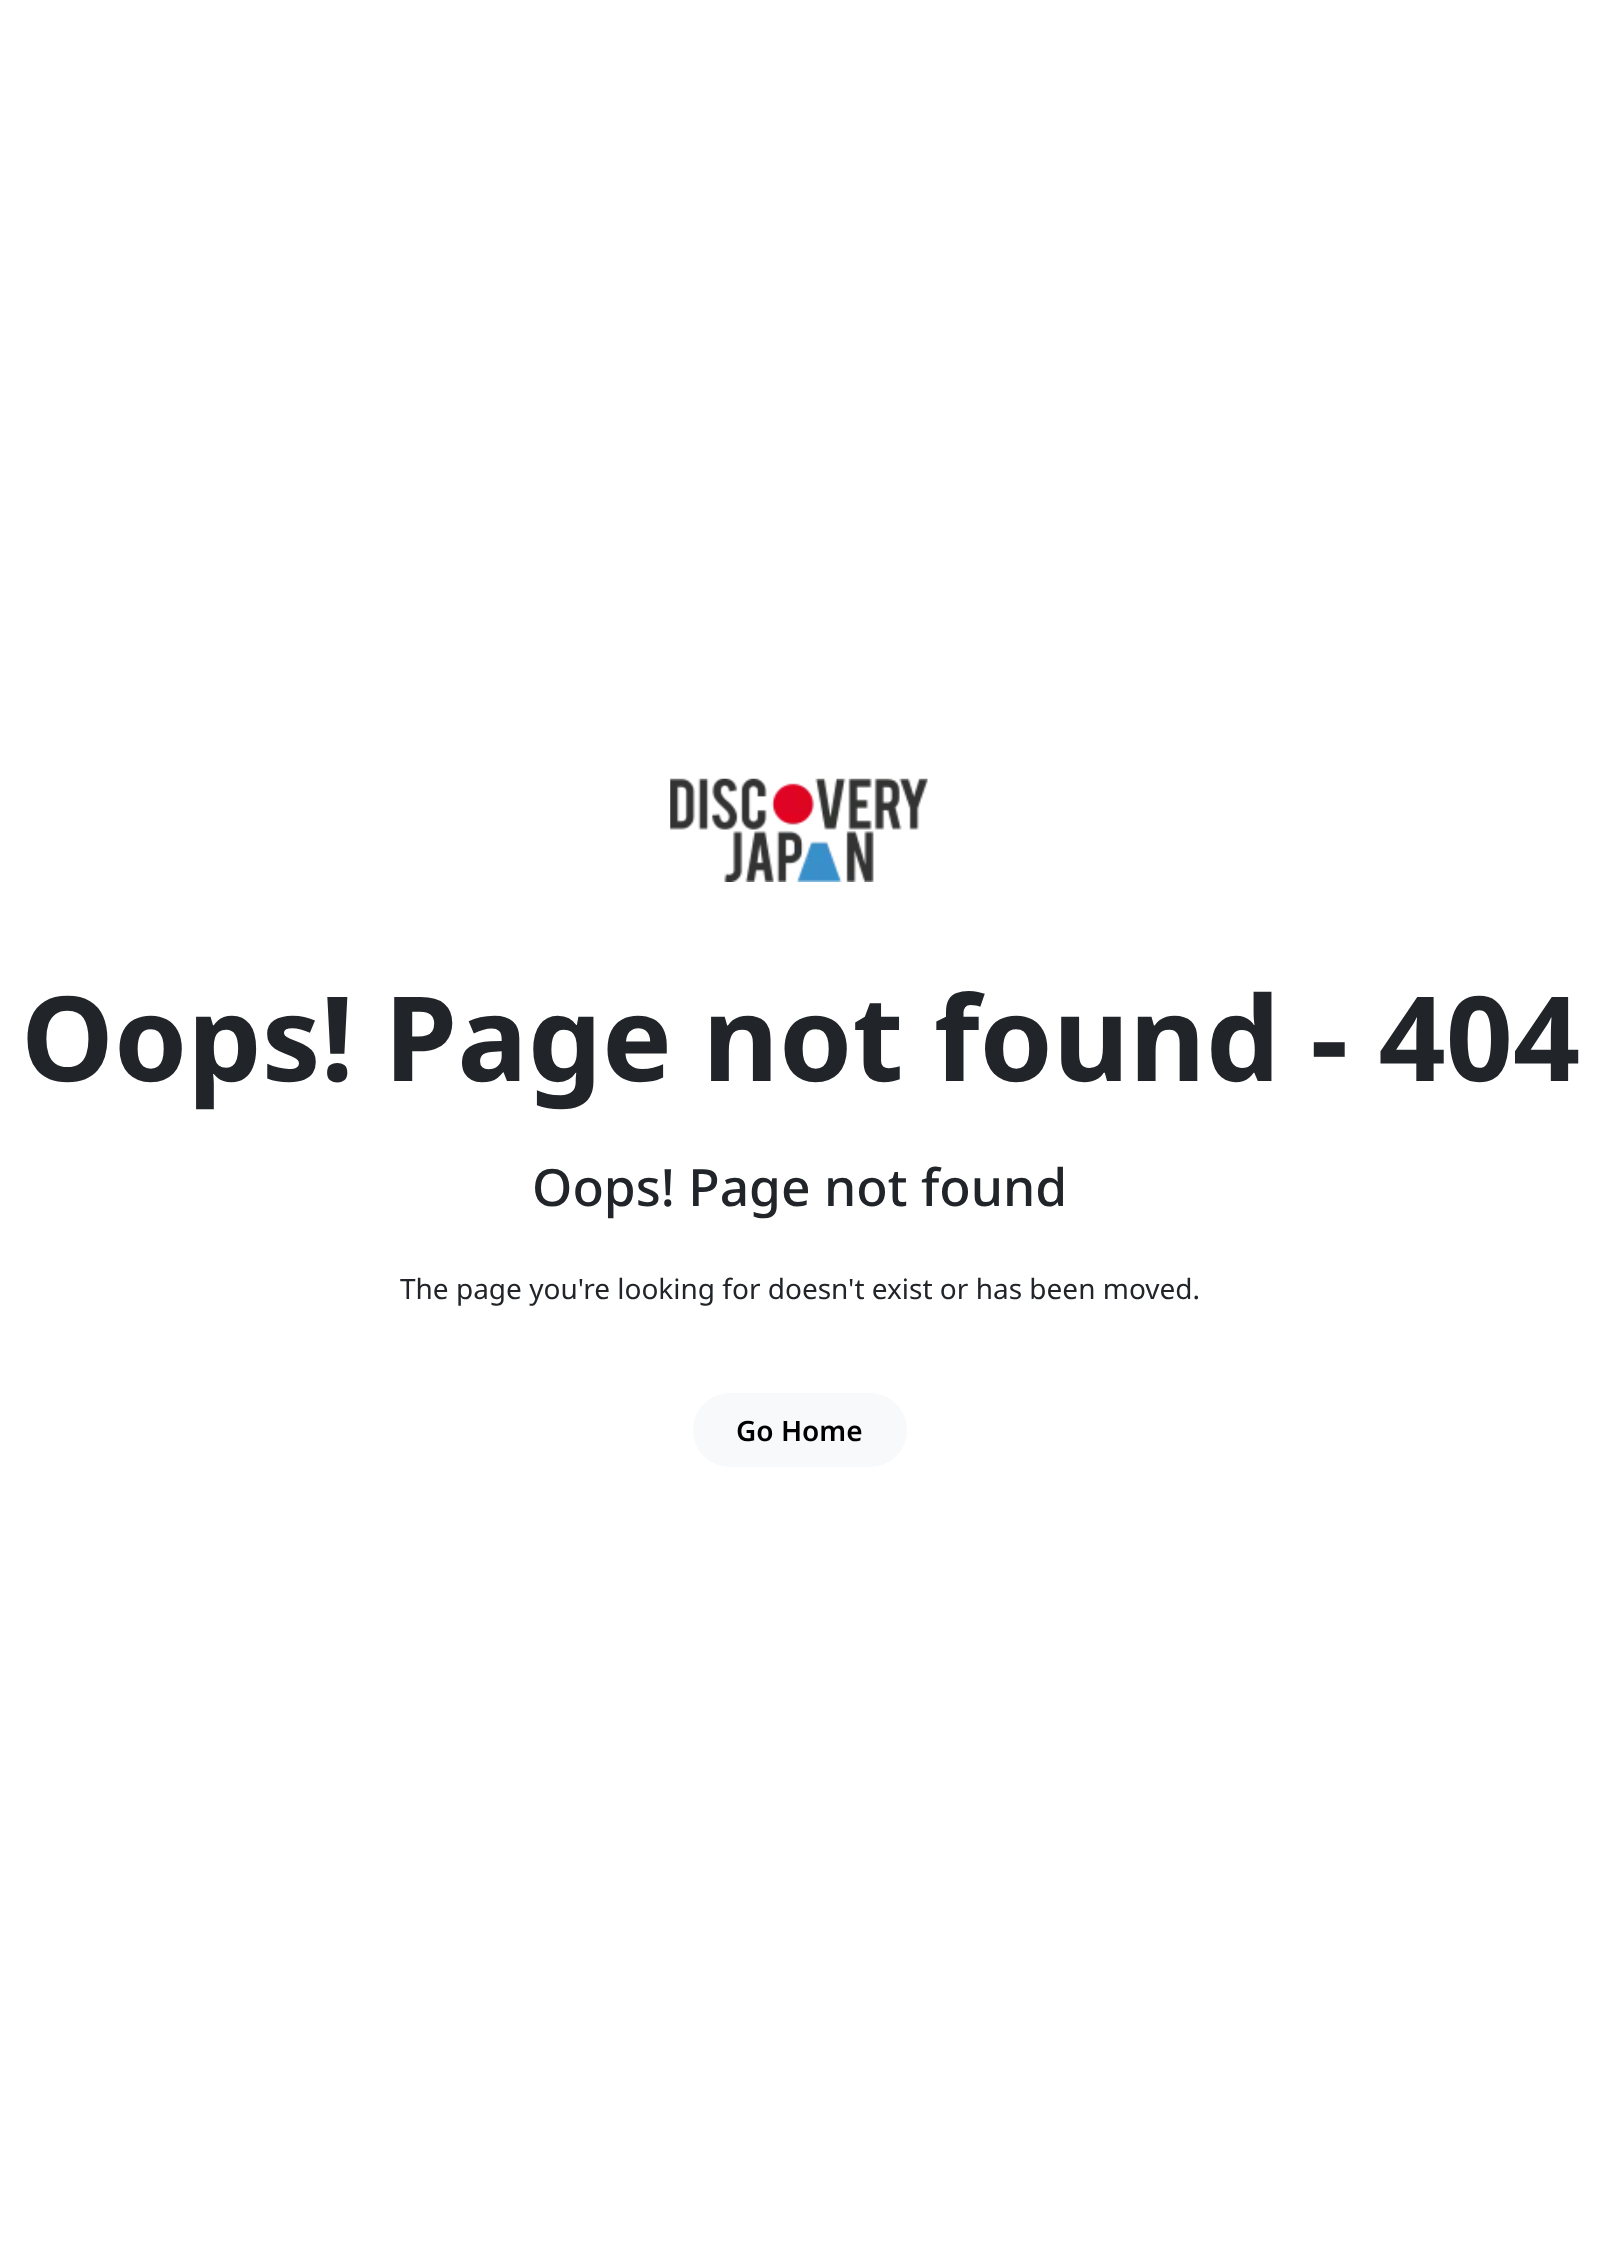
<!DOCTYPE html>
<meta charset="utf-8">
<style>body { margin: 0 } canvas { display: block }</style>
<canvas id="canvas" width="1598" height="2245"></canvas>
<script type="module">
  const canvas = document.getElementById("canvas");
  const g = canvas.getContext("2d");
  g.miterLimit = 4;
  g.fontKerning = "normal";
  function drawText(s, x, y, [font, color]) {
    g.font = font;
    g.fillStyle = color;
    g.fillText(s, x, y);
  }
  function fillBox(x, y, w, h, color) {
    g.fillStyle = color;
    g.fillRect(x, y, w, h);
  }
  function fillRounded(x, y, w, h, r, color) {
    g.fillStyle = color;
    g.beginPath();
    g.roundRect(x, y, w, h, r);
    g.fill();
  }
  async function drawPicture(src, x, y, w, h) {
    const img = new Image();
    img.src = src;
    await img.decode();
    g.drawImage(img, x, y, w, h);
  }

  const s1 = ["bold 117.5px Noto Sans", "#212529"];
  const s2 = ["500 51.5px Noto Sans", "#212529"];
  const s3 = ["28px Noto Sans", "#212529"];
  const s4 = ["600 28px Noto Sans", "#000000"];

  fillBox(0, 0, 1598, 2245, "#FFFFFF");
  await drawPicture("pic1.png", 670, 778, 258, 104);
  drawText("Oops! Page not found - 404", 21, 1081, s1);
  drawText("Oops! Page not found", 532, 1206, s2);
  drawText("The page you're looking for doesn't exist or has been moved.", 400, 1299, s3);
  fillRounded(693, 1393, 214, 74, 37, "#F8F9FA");
  drawText("Go Home", 736, 1441, s4);
</script>
